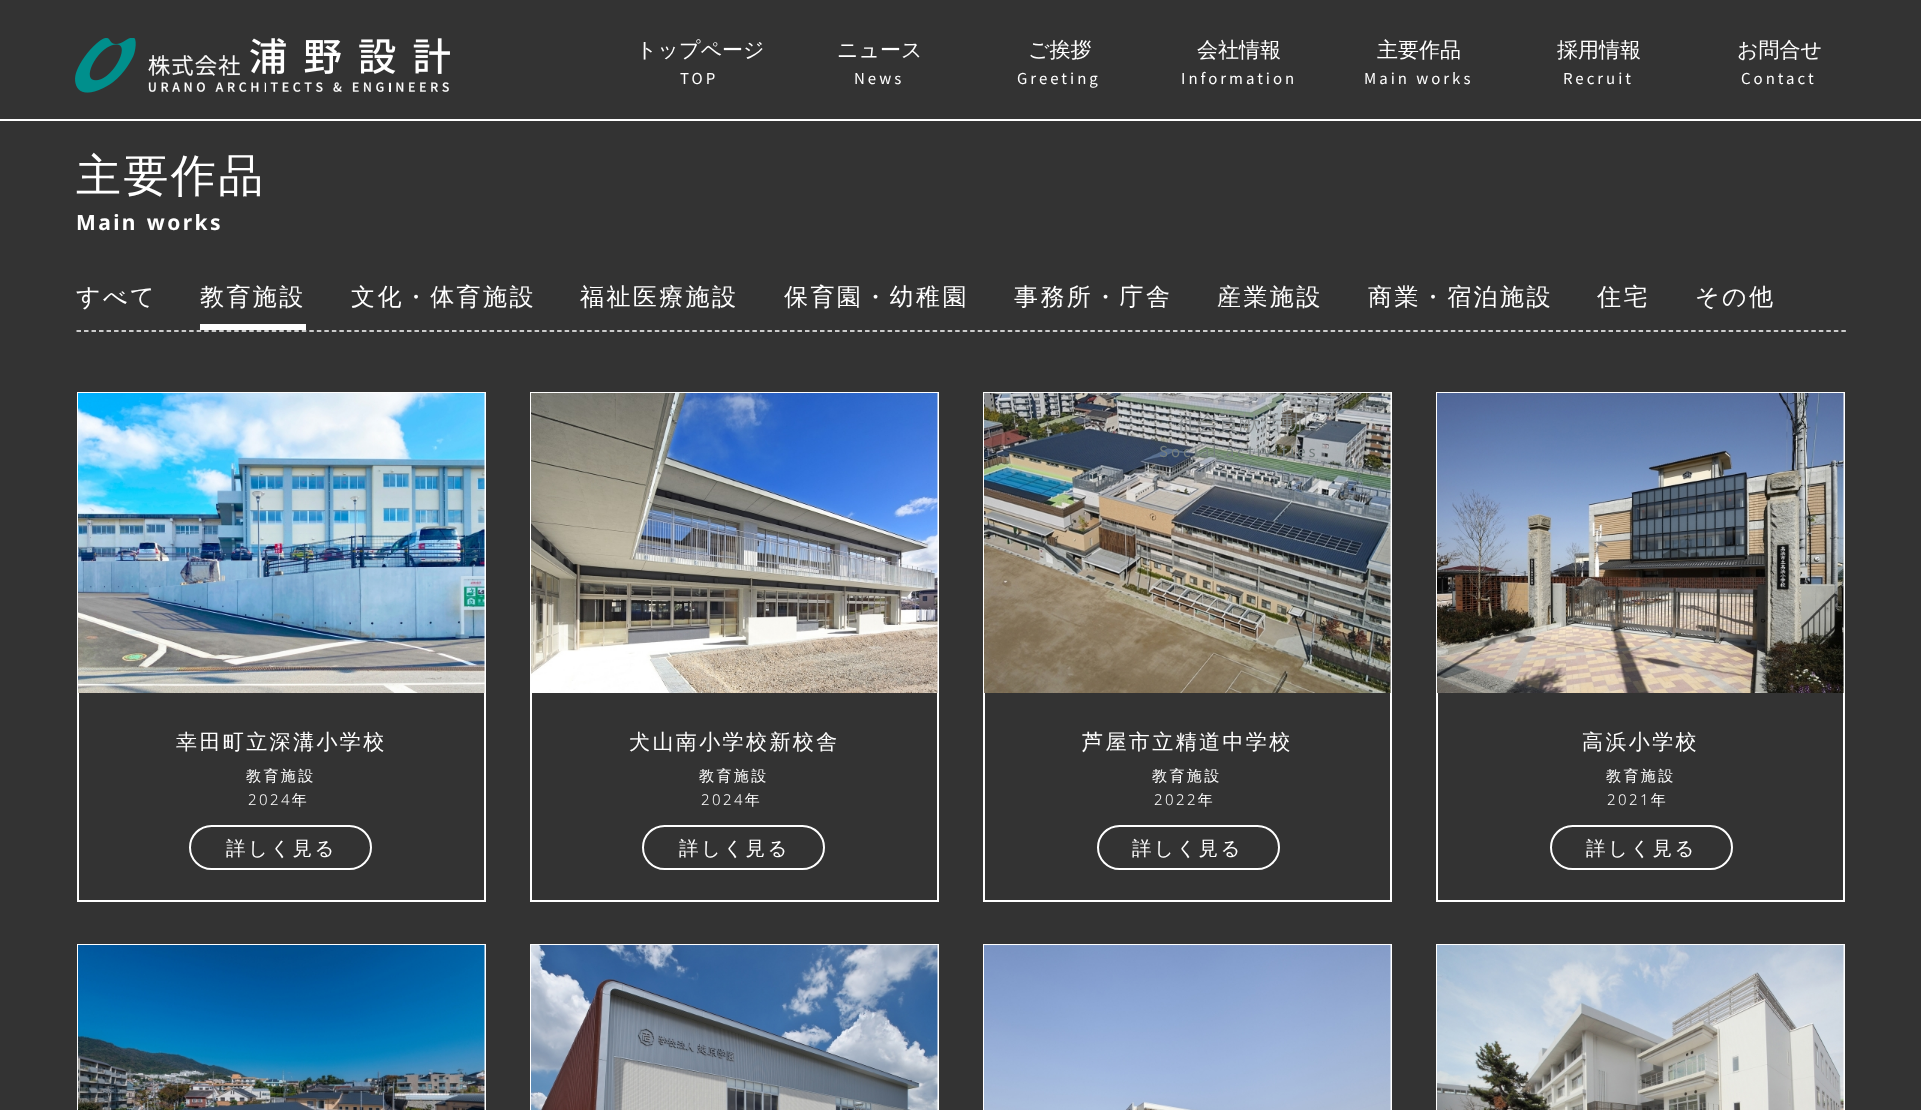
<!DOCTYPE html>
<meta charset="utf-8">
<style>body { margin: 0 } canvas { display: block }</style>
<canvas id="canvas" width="1921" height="1110"></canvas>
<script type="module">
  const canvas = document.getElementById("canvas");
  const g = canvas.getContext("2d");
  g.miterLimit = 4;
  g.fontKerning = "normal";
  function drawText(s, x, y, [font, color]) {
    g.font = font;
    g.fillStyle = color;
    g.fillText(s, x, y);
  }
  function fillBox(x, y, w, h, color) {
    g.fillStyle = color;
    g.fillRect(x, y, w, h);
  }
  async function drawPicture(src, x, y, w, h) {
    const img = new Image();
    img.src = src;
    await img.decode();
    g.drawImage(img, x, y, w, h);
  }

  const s1 = ["300 21px Noto Sans", "#FFFFFF"];
  const s2 = ["100 15px Noto Sans JP", "#FFFFFF"];
  const s3 = ["300 21px Noto Sans", "#8E9293"];
  const s4 = ["100 15px Noto Sans JP", "#747E7D"];
  const s5 = ["45px Noto Sans", "#FFFFFF"];
  const s6 = ["bold 21px Noto Sans", "#FFFFFF"];
  const s7 = ["300 24px Noto Sans", "#FFFFFF"];
  const s8 = ["300 15px Noto Sans", "#FFFFFF"];
  const s9 = ["300 19.5px Noto Sans", "#FFFFFF"];

  fillBox(0, 0, 1921, 1110, "#333333");
  fillBox(0, 119, 1921, 2, "#FFFFFF");
  await drawPicture("pic1.png", 75, 38, 375, 55);
  drawText("トップページ", 636, 57, s1);
  g.letterSpacing = "3px";
  drawText("TOP", 680, 84, s2);
  g.letterSpacing = "0px";
  drawText("ニュース", 837, 57, s1);
  g.letterSpacing = "3px";
  drawText("News", 854, 84, s2);
  g.letterSpacing = "0px";
  drawText("ご挨拶", 1028, 57, s1);
  g.letterSpacing = "3px";
  drawText("Greeting", 1017, 84, s2);
  g.letterSpacing = "0px";
  drawText("会社情報", 1197, 57, s1);
  g.letterSpacing = "3px";
  drawText("Information", 1181, 84, s2);
  g.strokeStyle = "#FFFFFF";
  g.lineWidth = 2;
  g.strokeRect(984, 393, 407, 508);
  await drawPicture("pic4.png", 984, 393, 407, 300);
  g.letterSpacing = "0px";
  drawText("社会貢献活動", 1176, 430, s3);
  g.letterSpacing = "3px";
  drawText("Social activities", 1159, 457, s4);
  g.letterSpacing = "0px";
  drawText("主要作品", 1377, 57, s1);
  g.letterSpacing = "3px";
  drawText("Main works", 1364, 84, s2);
  g.letterSpacing = "0px";
  drawText("採用情報", 1557, 57, s1);
  g.letterSpacing = "3px";
  drawText("Recruit", 1563, 84, s2);
  g.letterSpacing = "0px";
  drawText("お問合せ", 1737, 57, s1);
  g.letterSpacing = "3px";
  drawText("Contact", 1741, 84, s2);
  g.letterSpacing = "2.4px";
  drawText("主要作品", 76, 191, s5);
  g.wordSpacing = "1px";
  drawText("Main works", 76, 230, s6);
  g.beginPath();
  g.moveTo(76.5, 331);
  g.lineTo(1846.5, 331);
  g.lineWidth = 1.5;
  g.setLineDash([4.5, 3.01]);
  g.stroke();
  g.wordSpacing = "0px";
  drawText("すべて", 76, 305, s7);
  drawText("教育施設", 200, 305, s7);
  fillBox(200, 324, 106, 6, "#FFFFFF");
  drawText("文化・体育施設", 351, 305, s7);
  drawText("福祉医療施設", 580, 305, s7);
  drawText("保育園・幼稚園", 784, 305, s7);
  drawText("事務所・庁舎", 1014, 305, s7);
  drawText("産業施設", 1217, 305, s7);
  drawText("商業・宿泊施設", 1368, 305, s7);
  drawText("住宅", 1597, 305, s7);
  drawText("その他", 1695, 305, s7);
  g.lineWidth = 2;
  g.setLineDash([]);
  g.strokeRect(78, 393, 407, 508);
  await drawPicture("pic2.png", 78, 393, 407, 300);
  drawText("幸田町立深溝小学校", 176, 749, s1);
  drawText("教育施設", 246, 781, s8);
  drawText("2024年", 248, 805, s8);
  g.beginPath();
  g.roundRect(190, 826, 181, 43, 21.5);
  g.stroke();
  drawText("詳しく見る", 226, 855, s9);
  g.strokeRect(531, 393, 407, 508);
  await drawPicture("pic3.png", 531, 393, 407, 300);
  drawText("犬山南小学校新校舎", 629, 749, s1);
  drawText("教育施設", 699, 781, s8);
  drawText("2024年", 701, 805, s8);
  g.beginPath();
  g.roundRect(643, 826, 181, 43, 21.5);
  g.stroke();
  drawText("詳しく見る", 679, 855, s9);
  drawText("芦屋市立精道中学校", 1082, 749, s1);
  drawText("教育施設", 1152, 781, s8);
  drawText("2022年", 1154, 805, s8);
  g.beginPath();
  g.roundRect(1098, 826, 181, 43, 21.5);
  g.stroke();
  drawText("詳しく見る", 1132, 855, s9);
  g.strokeRect(1437, 393, 407, 508);
  await drawPicture("pic5.png", 1437, 393, 407, 300);
  drawText("高浜小学校", 1582, 749, s1);
  drawText("教育施設", 1606, 781, s8);
  drawText("2021年", 1607, 805, s8);
  g.beginPath();
  g.roundRect(1551, 826, 181, 43, 21.5);
  g.stroke();
  drawText("詳しく見る", 1586, 855, s9);
  g.strokeRect(78, 945, 407, 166);
  await drawPicture("pic6.png", 78, 945, 407, 165);
  g.strokeRect(531, 945, 407, 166);
  await drawPicture("pic7.png", 531, 945, 407, 165);
  g.strokeRect(984, 945, 407, 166);
  await drawPicture("pic8.png", 984, 945, 407, 165);
  g.strokeRect(1437, 945, 407, 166);
  await drawPicture("pic9.png", 1437, 945, 407, 165);
</script>
